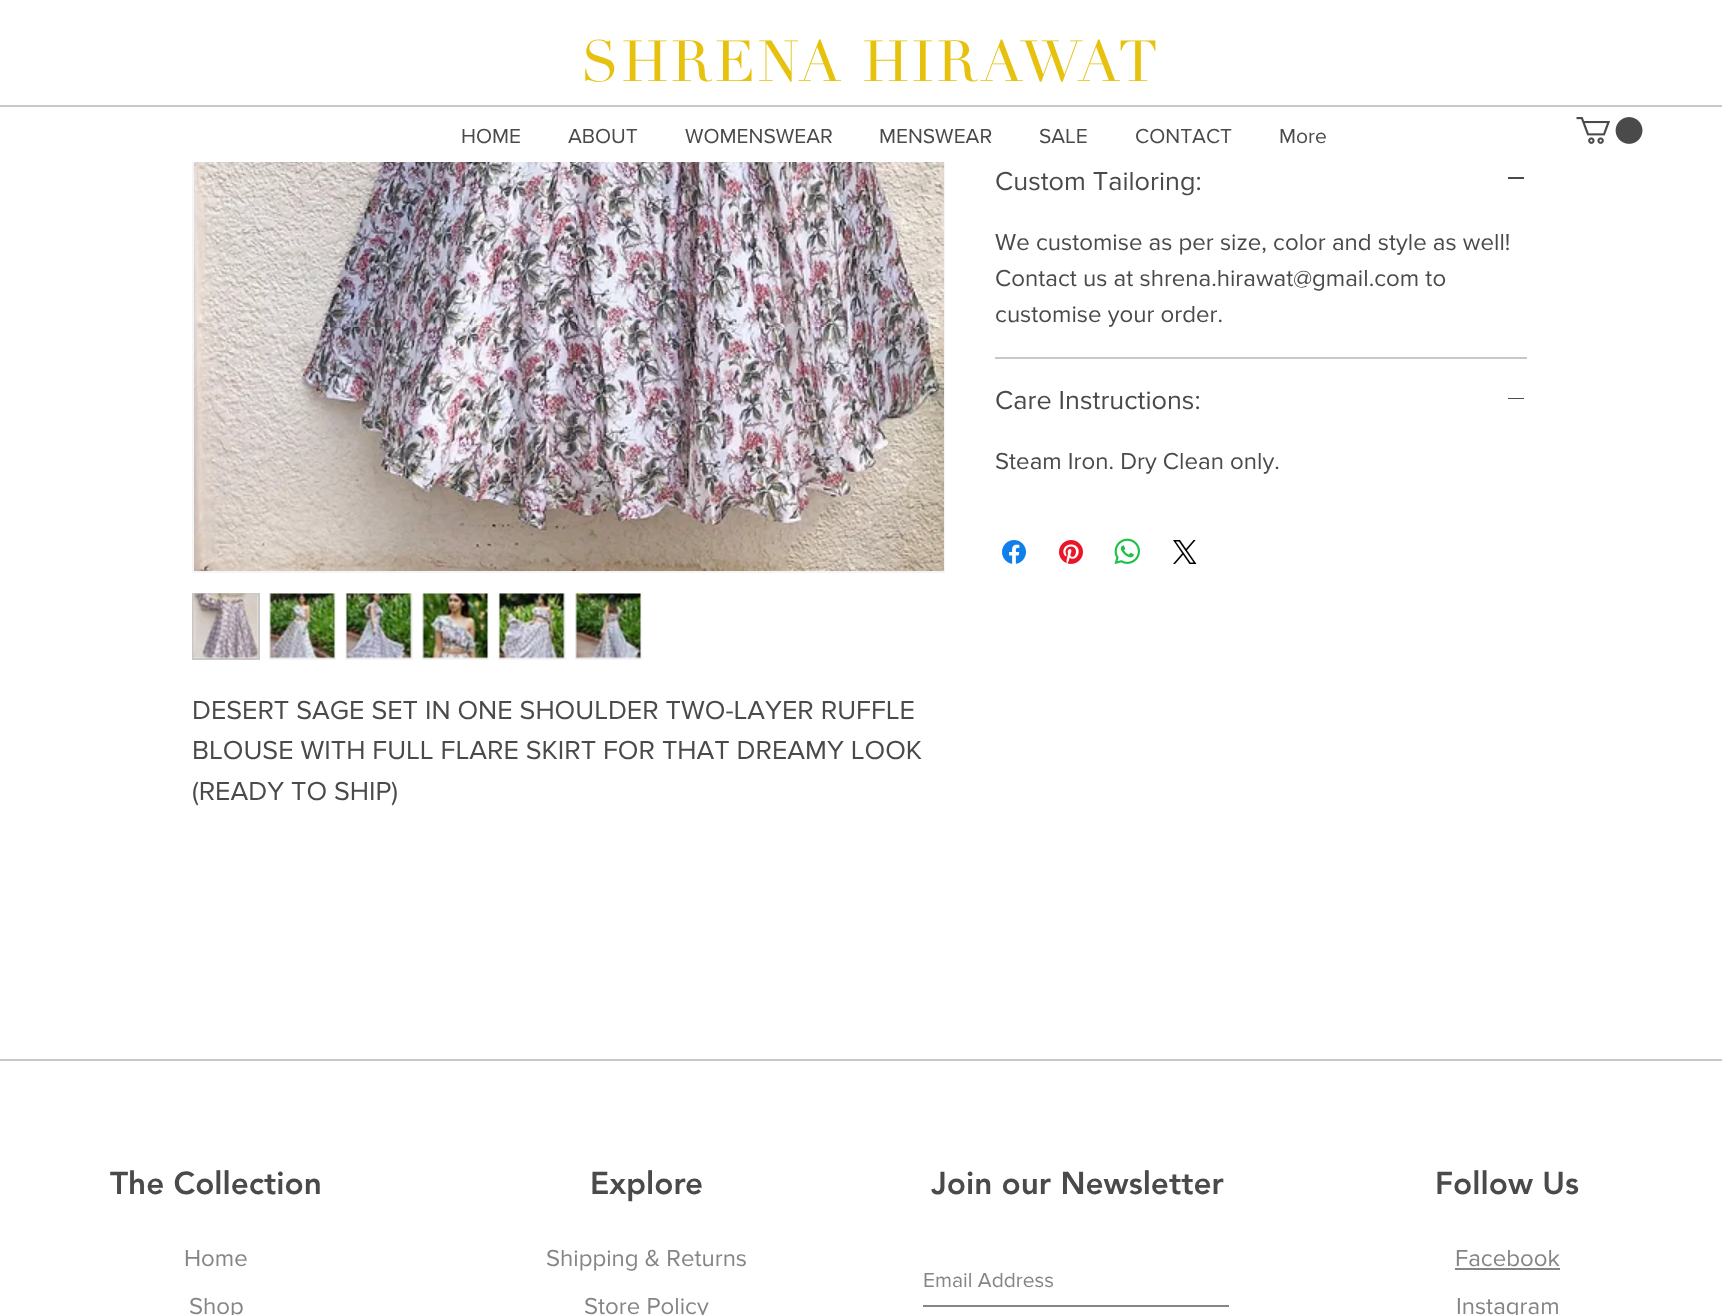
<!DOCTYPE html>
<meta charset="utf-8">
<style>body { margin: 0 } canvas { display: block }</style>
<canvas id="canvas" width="1722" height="1315"></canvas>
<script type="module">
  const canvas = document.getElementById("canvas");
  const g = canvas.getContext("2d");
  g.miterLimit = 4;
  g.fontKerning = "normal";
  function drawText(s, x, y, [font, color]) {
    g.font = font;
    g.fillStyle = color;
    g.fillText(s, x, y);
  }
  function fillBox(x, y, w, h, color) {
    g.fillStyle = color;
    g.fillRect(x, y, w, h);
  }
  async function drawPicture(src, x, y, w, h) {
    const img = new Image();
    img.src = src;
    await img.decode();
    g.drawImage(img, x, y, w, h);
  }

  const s1 = ["57px Didot", "#E6C20E"];
  const s2 = ["21px 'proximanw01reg'", "#4A4A4A"];
  const s3 = ["27px 'proximanw01reg'", "#4A4A4A"];
  const s4 = ["24px 'proximanw01reg'", "#4A4A4A"];
  const s5 = ["900 31.5px 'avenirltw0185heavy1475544'", "#4A4A4A"];
  const s6 = ["24px 'proximanw01reg'", "#858583"];
  const s7 = ["21px 'proximanw01reg'", "#858583"];

  fillBox(0, 0, 1722, 1315, "#FFFFFF");
  g.strokeStyle = "#F5F5F5";
  g.lineWidth = 2;
  g.strokeRect(193, -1, 751, 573);
  fillBox(192, 0, 753, 162, "#FFFFFF");
  g.letterSpacing = "2.8px";
  drawText("SHRENA HIRAWAT", 581, 81, s1);
  fillBox(0, 105, 1722, 2, "#C7C7C7");
  g.letterSpacing = "0px";
  drawText("HOME", 461, 143, s2);
  drawText("ABOUT", 568, 143, s2);
  drawText("WOMENSWEAR", 685, 143, s2);
  drawText("MENSWEAR", 879, 143, s2);
  drawText("SALE", 1039, 143, s2);
  drawText("CONTACT", 1135, 143, s2);
  drawText("More", 1279, 143, s2);
  await drawPicture("pic1.png", 1576, 117, 67, 27);
  fillBox(995, 357, 532, 2, "#C7C7C7");
  drawText("Custom Tailoring:", 995, 190, s3);
  fillBox(1508, 177, 16, 2, "#4A4A4A");
  drawText("We customise as per size, color and style as well!", 995, 250, s4);
  drawText("Contact us at shrena.hirawat@gmail.com to", 995, 286, s4);
  drawText("customise your order.", 995, 322, s4);
  drawText("Care Instructions:", 995, 409, s3);
  fillBox(1508, 398, 16, 1, "#4A4A4A");
  drawText("Steam Iron. Dry Clean only.", 995, 469, s4);
  await drawPicture("pic2.png", 1002, 540, 24, 24);
  await drawPicture("pic3.png", 1059, 540, 24, 24);
  await drawPicture("pic4.png", 1114, 538, 26, 27);
  await drawPicture("pic5.png", 1173, 540, 24, 24);
  await drawPicture("pic6.png", 194, 162, 750, 409);
  g.fillStyle = "#F5F5F5";
  g.beginPath();
  g.rect(193, 594, 66, 65);
  g.fill();
  g.strokeStyle = "#C7C7C7";
  g.stroke();
  await drawPicture("pic7.png", 193, 593, 66, 66);
  fillBox(269, 593, 67, 67, "#F5F5F5");
  await drawPicture("pic8.png", 269, 593, 66, 66);
  fillBox(345, 593, 68, 67, "#F5F5F5");
  await drawPicture("pic9.png", 346, 593, 66, 66);
  fillBox(422, 593, 67, 67, "#F5F5F5");
  await drawPicture("pic10.png", 422, 593, 66, 66);
  fillBox(498, 593, 68, 67, "#F5F5F5");
  await drawPicture("pic11.png", 499, 593, 66, 66);
  fillBox(575, 593, 67, 67, "#F5F5F5");
  await drawPicture("pic12.png", 575, 593, 66, 66);
  drawText("DESERT SAGE SET IN ONE SHOULDER TWO-LAYER RUFFLE", 192, 719, s3);
  drawText("BLOUSE WITH FULL FLARE SKIRT FOR THAT DREAMY LOOK", 192, 759, s3);
  drawText("(READY TO SHIP)", 192, 800, s3);
  fillBox(0, 1059, 1722, 2, "#C7C7C7");
  drawText("The Collection", 110, 1194, s5);
  drawText("Home", 184, 1266, s6);
  drawText("Shop", 189, 1314, s6);
  drawText("Explore", 590, 1194, s5);
  drawText("Shipping & Returns", 546, 1266, s6);
  drawText("Store Policy", 584, 1314, s6);
  drawText("Join our Newsletter", 931, 1194, s5);
  fillBox(923, 1305, 306, 2, "#858583");
  drawText("Email Address", 923, 1287, s7);
  drawText("Follow Us", 1435, 1194, s5);
  drawText("Facebook", 1455, 1266, s6);
  fillBox(1455, 1268, 105, 2, "#858583");
  drawText("Instagram", 1456, 1314, s6);
</script>
